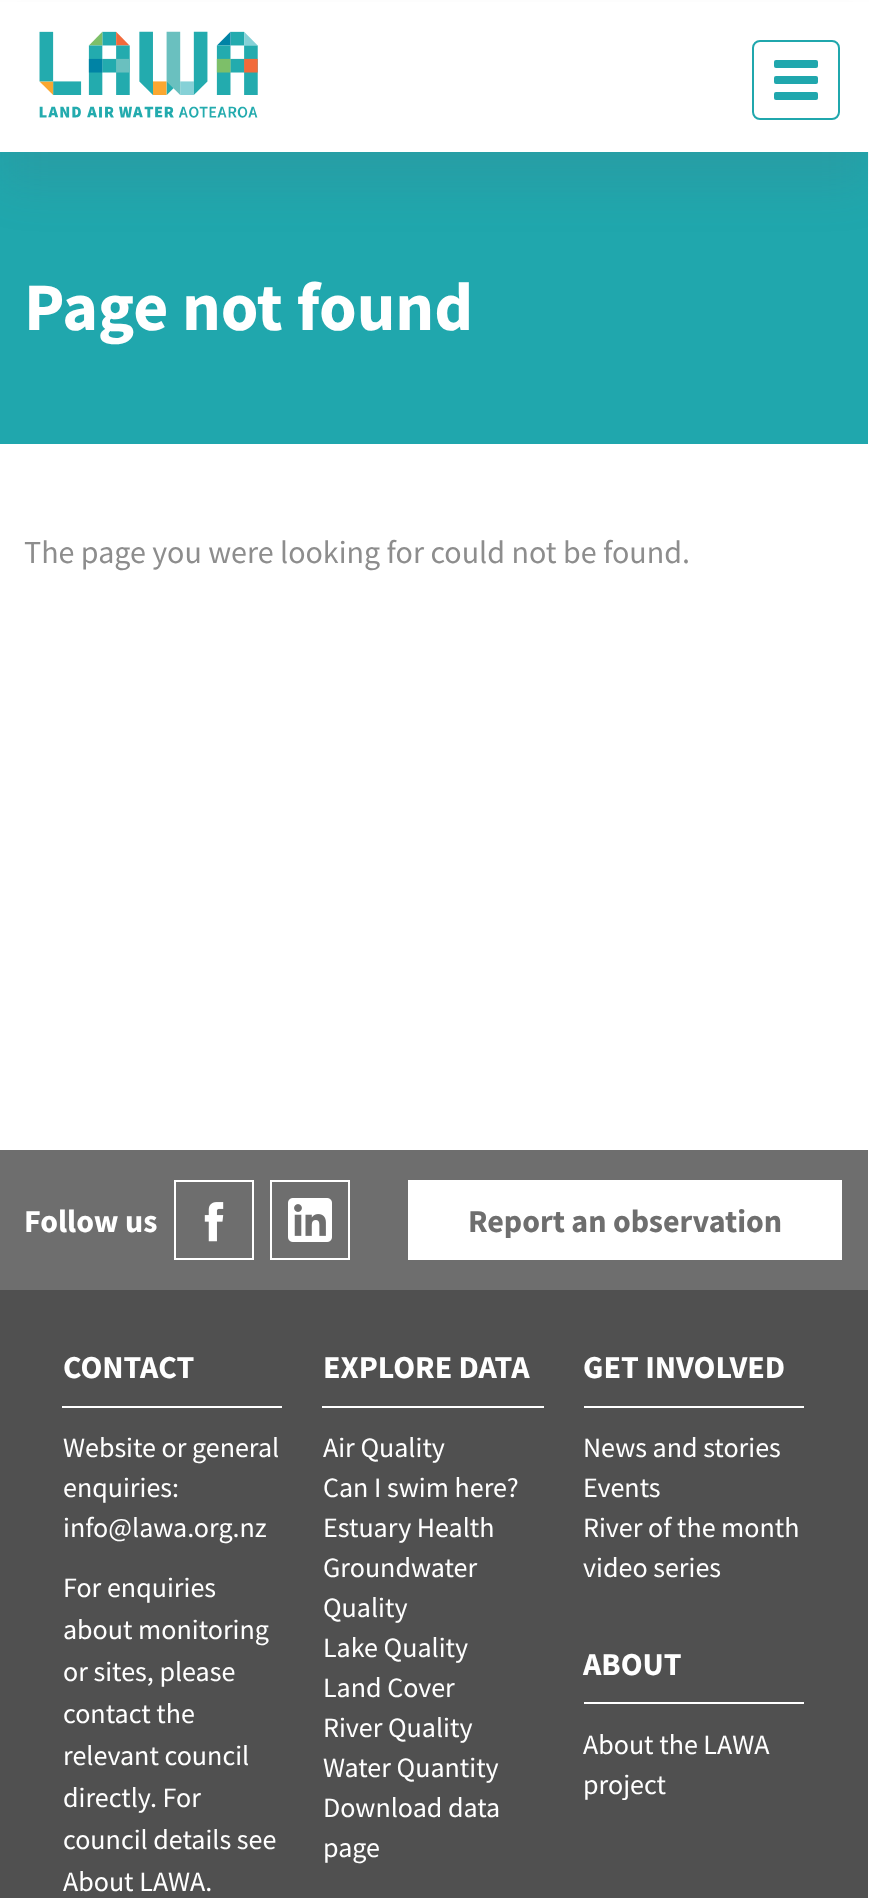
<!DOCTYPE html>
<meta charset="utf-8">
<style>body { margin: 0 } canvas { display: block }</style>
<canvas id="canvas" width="869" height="1898"></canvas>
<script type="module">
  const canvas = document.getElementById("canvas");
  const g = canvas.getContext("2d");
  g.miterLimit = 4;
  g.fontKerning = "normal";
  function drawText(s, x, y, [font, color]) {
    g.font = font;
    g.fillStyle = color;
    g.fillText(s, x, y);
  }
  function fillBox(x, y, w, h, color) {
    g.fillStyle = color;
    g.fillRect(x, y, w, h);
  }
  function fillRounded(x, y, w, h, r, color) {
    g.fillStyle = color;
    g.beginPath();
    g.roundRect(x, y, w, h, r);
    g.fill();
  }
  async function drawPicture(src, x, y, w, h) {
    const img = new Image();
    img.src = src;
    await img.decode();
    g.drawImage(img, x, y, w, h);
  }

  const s1 = ["bold 68px Source Sans Pro", "#FFFFFF"];
  const s2 = ["32px Source Sans Pro", "#8D8D8D"];
  const s3 = ["bold 32px Source Sans Pro", "#FFFFFF"];
  const s4 = ["bold 32px Source Sans Pro", "#6E6E6E"];
  const s5 = ["28px Source Sans Pro", "#FFFFFF"];

  fillBox(0, 0, 869, 1898, "#FFFFFF");
  fillBox(0, 152, 868, 292, "#20A7AD");
  g.fillStyle = "rgba(82, 97, 115, 0.14)";
  g.filter = "blur(24px)";
  g.beginPath();
  g.rect(0, 32, 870, 152);
  g.fill();
  g.filter = "none";
  fillBox(0, 2, 869, 150, "#FFFFFF");
  await drawPicture("pic1.png", 39, 31, 219, 87);
  g.beginPath();
  g.roundRect(753, 41, 86, 78, 7);
  g.strokeStyle = "#20A7AD";
  g.lineWidth = 2;
  g.stroke();
  fillRounded(774, 60, 44, 8, 2, "#20A7AD");
  fillRounded(774, 76, 44, 8, 2, "#20A7AD");
  fillRounded(774, 92, 44, 8, 2, "#20A7AD");
  drawText("Page not found", 24, 330, s1);
  drawText("The page you were looking for could not be found.", 24, 563, s2);
  fillBox(0, 1290, 868, 608, "#505050");
  fillBox(0, 1150, 868, 140, "#6E6E6E");
  drawText("Follow us", 24, 1232, s3);
  g.strokeStyle = "#FFFFFF";
  g.strokeRect(175, 1181, 78, 78);
  await drawPicture("pic2.png", 204, 1202, 20, 40);
  g.strokeRect(271, 1181, 78, 78);
  await drawPicture("pic3.png", 288, 1198, 44, 44);
  fillBox(408, 1180, 434, 80, "#FFFFFF");
  drawText("Report an observation", 468, 1232, s4);
  fillBox(62, 1406, 220, 2, "#FFFFFF");
  drawText("CONTACT", 63, 1378, s3);
  drawText("Website or general", 63, 1457, s5);
  drawText("enquiries:", 63, 1497, s5);
  drawText("info@lawa.org.nz", 63, 1537, s5);
  drawText("For enquiries", 63, 1597, s5);
  drawText("about monitoring", 63, 1639, s5);
  drawText("or sites, please", 63, 1681, s5);
  drawText("contact the", 63, 1723, s5);
  drawText("relevant council", 63, 1765, s5);
  drawText("directly. For", 63, 1807, s5);
  drawText("council details see", 63, 1849, s5);
  drawText("About LAWA.", 63, 1891, s5);
  fillBox(322, 1406, 222, 2, "#FFFFFF");
  drawText("EXPLORE DATA", 323, 1378, s3);
  drawText("Air Quality", 323, 1457, s5);
  drawText("Can I swim here?", 323, 1497, s5);
  drawText("Estuary Health", 323, 1537, s5);
  drawText("Groundwater", 323, 1577, s5);
  drawText("Quality", 323, 1617, s5);
  drawText("Lake Quality", 323, 1657, s5);
  drawText("Land Cover", 323, 1697, s5);
  drawText("River Quality", 323, 1737, s5);
  drawText("Water Quantity", 323, 1777, s5);
  drawText("Download data", 323, 1817, s5);
  drawText("page", 323, 1857, s5);
  fillBox(584, 1406, 220, 2, "#FFFFFF");
  drawText("GET INVOLVED", 583, 1378, s3);
  drawText("News and stories", 583, 1457, s5);
  drawText("Events", 583, 1497, s5);
  drawText("River of the month", 583, 1537, s5);
  drawText("video series", 583, 1577, s5);
  fillBox(584, 1702, 220, 2, "#FFFFFF");
  drawText("ABOUT", 583, 1675, s3);
  drawText("About the LAWA", 583, 1754, s5);
  drawText("project", 583, 1794, s5);
</script>
